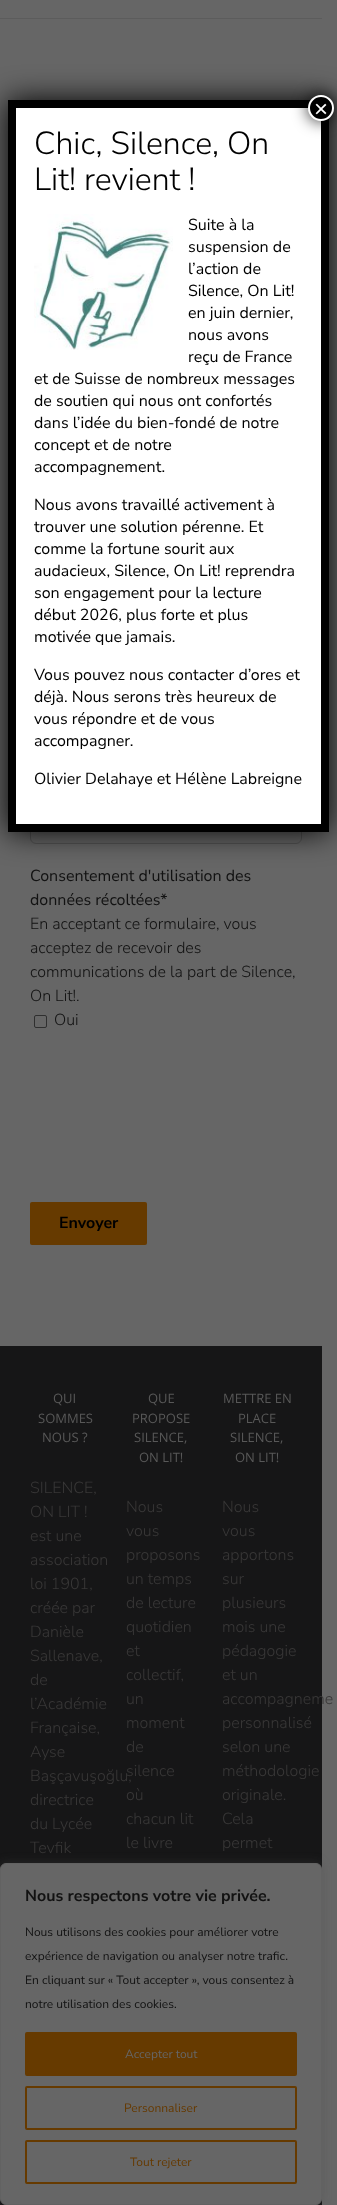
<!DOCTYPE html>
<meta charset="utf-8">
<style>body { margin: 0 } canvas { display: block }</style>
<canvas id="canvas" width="337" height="2205"></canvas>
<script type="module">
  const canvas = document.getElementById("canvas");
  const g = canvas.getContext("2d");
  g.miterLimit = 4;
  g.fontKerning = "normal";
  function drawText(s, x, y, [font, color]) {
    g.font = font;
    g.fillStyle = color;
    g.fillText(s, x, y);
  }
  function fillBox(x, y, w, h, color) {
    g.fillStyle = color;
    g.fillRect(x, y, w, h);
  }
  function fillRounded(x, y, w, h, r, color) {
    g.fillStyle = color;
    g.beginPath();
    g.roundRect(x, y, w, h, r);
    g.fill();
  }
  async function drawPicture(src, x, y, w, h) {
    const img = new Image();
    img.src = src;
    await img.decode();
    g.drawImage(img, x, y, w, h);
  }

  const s1 = ["24px Liberation Sans", "#FFFFFF"];
  const s2 = ["300 32px Nunito Sans", "#000000"];
  const s3 = ["16px Nunito Sans", "#000000"];
  const s4 = ["16px Nunito Sans", "#121212"];
  const s5 = ["300 16px Nunito Sans", "#121212"];
  const s6 = ["bold 16px Nunito Sans", "#000000"];
  const s7 = ["13px Open Sans", "#585858"];
  const s8 = ["300 16px Nunito Sans", "#383737"];
  const s9 = ["bold 16px Nunito Sans", "#121212"];
  const s10 = ["12px Nunito Sans", "#121212"];
  const s11 = ["12px Nunito Sans", "#666666"];
  const s12 = ["12px Nunito Sans", "#663A00"];

  fillBox(0, 0, 337, 2205, "#666666");
  g.beginPath();
  g.roundRect(30.5, 694.5, 271, 149, 5.5);
  g.strokeStyle = "#545454";
  g.stroke();
  g.fillStyle = "#020202";
  g.filter = "blur(15px)";
  g.beginPath();
  g.roundRect(8, 100, 321, 732, 3);
  g.fill();
  g.filter = "none";
  fillBox(16, 108, 305, 716, "#FFFFFF");
  g.beginPath();
  g.moveTo(12, 104);
  g.lineTo(325, 104);
  g.lineTo(325, 828);
  g.lineTo(12, 828);
  g.closePath();
  g.strokeStyle = "#000000";
  g.lineWidth = 8;
  g.stroke();
  g.fillStyle = "rgba(2, 2, 2, 0.75)";
  g.filter = "blur(7.5px)";
  g.beginPath();
  g.roundRect(307, 94, 28, 28, 14);
  g.fill();
  g.filter = "none";
  g.fillStyle = "#000000";
  g.beginPath();
  g.arc(321, 108, 12, 0, Math.PI * 2);
  g.fill();
  g.strokeStyle = "#FFFFFF";
  g.lineWidth = 2;
  g.stroke();
  drawText("×", 314, 117, s1);
  drawText("Chic, Silence, On", 34, 154, s2);
  drawText("Lit! revient !", 34, 190, s2);
  await drawPicture("pic1.png", 34, 214, 139, 136);
  drawText("Suite à la", 188, 230, s3);
  drawText("suspension de", 188, 252, s3);
  drawText("l’action de", 188, 274, s3);
  drawText("Silence, On Lit!", 188, 296, s3);
  drawText("en juin dernier,", 188, 318, s3);
  drawText("nous avons", 188, 340, s3);
  drawText("reçu de France", 188, 362, s3);
  drawText("et de Suisse de nombreux messages", 34, 384, s3);
  drawText("de soutien qui nous ont confortés", 34, 406, s3);
  drawText("dans l’idée du bien-fondé de notre", 34, 428, s3);
  drawText("concept et de notre", 34, 450, s3);
  drawText("accompagnement.", 34, 472, s3);
  drawText("Nous avons travaillé activement à", 34, 510, s3);
  drawText("trouver une solution pérenne. Et", 34, 532, s3);
  drawText("comme la fortune sourit aux", 34, 554, s3);
  drawText("audacieux, Silence, On Lit! reprendra", 34, 576, s3);
  drawText("son engagement pour la lecture", 34, 598, s3);
  drawText("début 2026, plus forte et plus", 34, 620, s3);
  drawText("motivée que jamais.", 34, 642, s3);
  drawText("Vous pouvez nous contacter d’ores et", 34, 680, s3);
  drawText("déjà. Nous serons très heureux de", 34, 702, s3);
  drawText("vous répondre et de vous", 34, 724, s3);
  drawText("accompagner.", 34, 746, s3);
  drawText("Olivier Delahaye et Hélène Labreigne", 34, 784, s3);
  fillBox(0, 18, 322, 1, "#5C5C5C");
  drawText("Consentement d'utilisation des", 30, 881, s4);
  drawText("données récoltées*", 30, 905, s4);
  drawText("En acceptant ce formulaire, vous", 30, 929, s5);
  drawText("acceptez de recevoir des", 30, 953, s5);
  drawText("communications de la part de Silence,", 30, 977, s5);
  drawText("On Lit!.", 30, 1001, s5);
  g.beginPath();
  g.roundRect(34.5, 1015.5, 12, 12, 1.5);
  g.strokeStyle = "#2F2F2F";
  g.lineWidth = 1;
  g.stroke();
  drawText("Oui", 54, 1025, s5);
  fillRounded(30, 1202, 117, 43, 2, "#663A00");
  drawText("Envoyer", 59, 1228, s6);
  fillBox(0, 1346, 322, 859, "#161617");
  drawText("QUI", 53, 1403, s7);
  drawText("SOMMES", 38, 1423, s7);
  drawText("NOUS ?", 42, 1442, s7);
  drawText("SILENCE,", 30, 1493, s8);
  drawText("ON LIT !", 30, 1517, s8);
  drawText("est une", 30, 1541, s8);
  drawText("association", 30, 1565, s8);
  drawText("loi 1901,", 30, 1589, s8);
  drawText("créée par", 30, 1613, s8);
  drawText("Danièle", 30, 1637, s8);
  drawText("Sallenave,", 30, 1661, s8);
  drawText("de", 30, 1685, s8);
  drawText("l’Académie", 30, 1709, s8);
  drawText("Française,", 30, 1733, s8);
  drawText("Ayse", 30, 1757, s8);
  drawText("Başçavuşoğlu,", 30, 1781, s8);
  drawText("directrice", 30, 1805, s8);
  drawText("du Lycée", 30, 1829, s8);
  drawText("Tevfik", 30, 1853, s8);
  drawText("QUE", 148, 1403, s7);
  drawText("PROPOSE", 132, 1423, s7);
  drawText("SILENCE,", 134, 1442, s7);
  drawText("ON LIT!", 139, 1462, s7);
  drawText("Nous", 126, 1512, s8);
  drawText("vous", 126, 1536, s8);
  drawText("proposons", 126, 1560, s8);
  drawText("un temps", 126, 1584, s8);
  drawText("de lecture", 126, 1608, s8);
  drawText("quotidien", 126, 1632, s8);
  drawText("et", 126, 1656, s8);
  drawText("collectif,", 126, 1680, s8);
  drawText("un", 126, 1704, s8);
  drawText("moment", 126, 1728, s8);
  drawText("de", 126, 1752, s8);
  drawText("silence", 126, 1776, s8);
  drawText("où", 126, 1800, s8);
  drawText("chacun lit", 126, 1824, s8);
  drawText("le livre", 126, 1848, s8);
  drawText("METTRE EN", 223, 1403, s7);
  drawText("PLACE", 238, 1423, s7);
  drawText("SILENCE,", 230, 1442, s7);
  drawText("ON LIT!", 235, 1462, s7);
  drawText("Nous", 222, 1512, s8);
  drawText("vous", 222, 1536, s8);
  drawText("apportons", 222, 1560, s8);
  drawText("sur", 222, 1584, s8);
  drawText("plusieurs", 222, 1608, s8);
  drawText("mois une", 222, 1632, s8);
  drawText("pédagogie", 222, 1656, s8);
  drawText("et un", 222, 1680, s8);
  drawText("accompagneme", 222, 1704, s8);
  drawText("personnalisé", 222, 1728, s8);
  drawText("selon une", 222, 1752, s8);
  drawText("méthodologie", 222, 1776, s8);
  drawText("originale.", 222, 1800, s8);
  drawText("Cela", 222, 1824, s8);
  drawText("permet", 222, 1848, s8);
  g.fillStyle = "rgba(69, 68, 68, 0.3)";
  g.filter = "blur(5px)";
  g.beginPath();
  g.roundRect(0, 1862, 322, 342, 6);
  g.fill();
  g.filter = "none";
  g.fillStyle = "#666666";
  g.beginPath();
  g.roundRect(0.5, 1863.5, 321, 341, 5.5);
  g.fill();
  g.strokeStyle = "#626262";
  g.stroke();
  drawText("Nous respectons votre vie privée.", 25, 1901, s9);
  drawText("Nous utilisons des cookies pour améliorer votre", 25, 1936, s10);
  drawText("expérience de navigation ou analyser notre trafic.", 25, 1960, s10);
  drawText("En cliquant sur « Tout accepter », vous consentez à", 25, 1984, s10);
  drawText("notre utilisation des cookies.", 25, 2008, s10);
  g.fillStyle = "#663A00";
  g.beginPath();
  g.roundRect(26, 2033, 270, 42, 1);
  g.fill();
  g.strokeStyle = "#663A00";
  g.lineWidth = 2;
  g.stroke();
  drawText("Accepter tout", 125, 2058, s11);
  g.beginPath();
  g.roundRect(26, 2087, 270, 42, 1);
  g.stroke();
  drawText("Personnaliser", 124, 2112, s12);
  g.beginPath();
  g.roundRect(26, 2141, 270, 42, 1);
  g.stroke();
  drawText("Tout rejeter", 130, 2166, s12);
</script>
